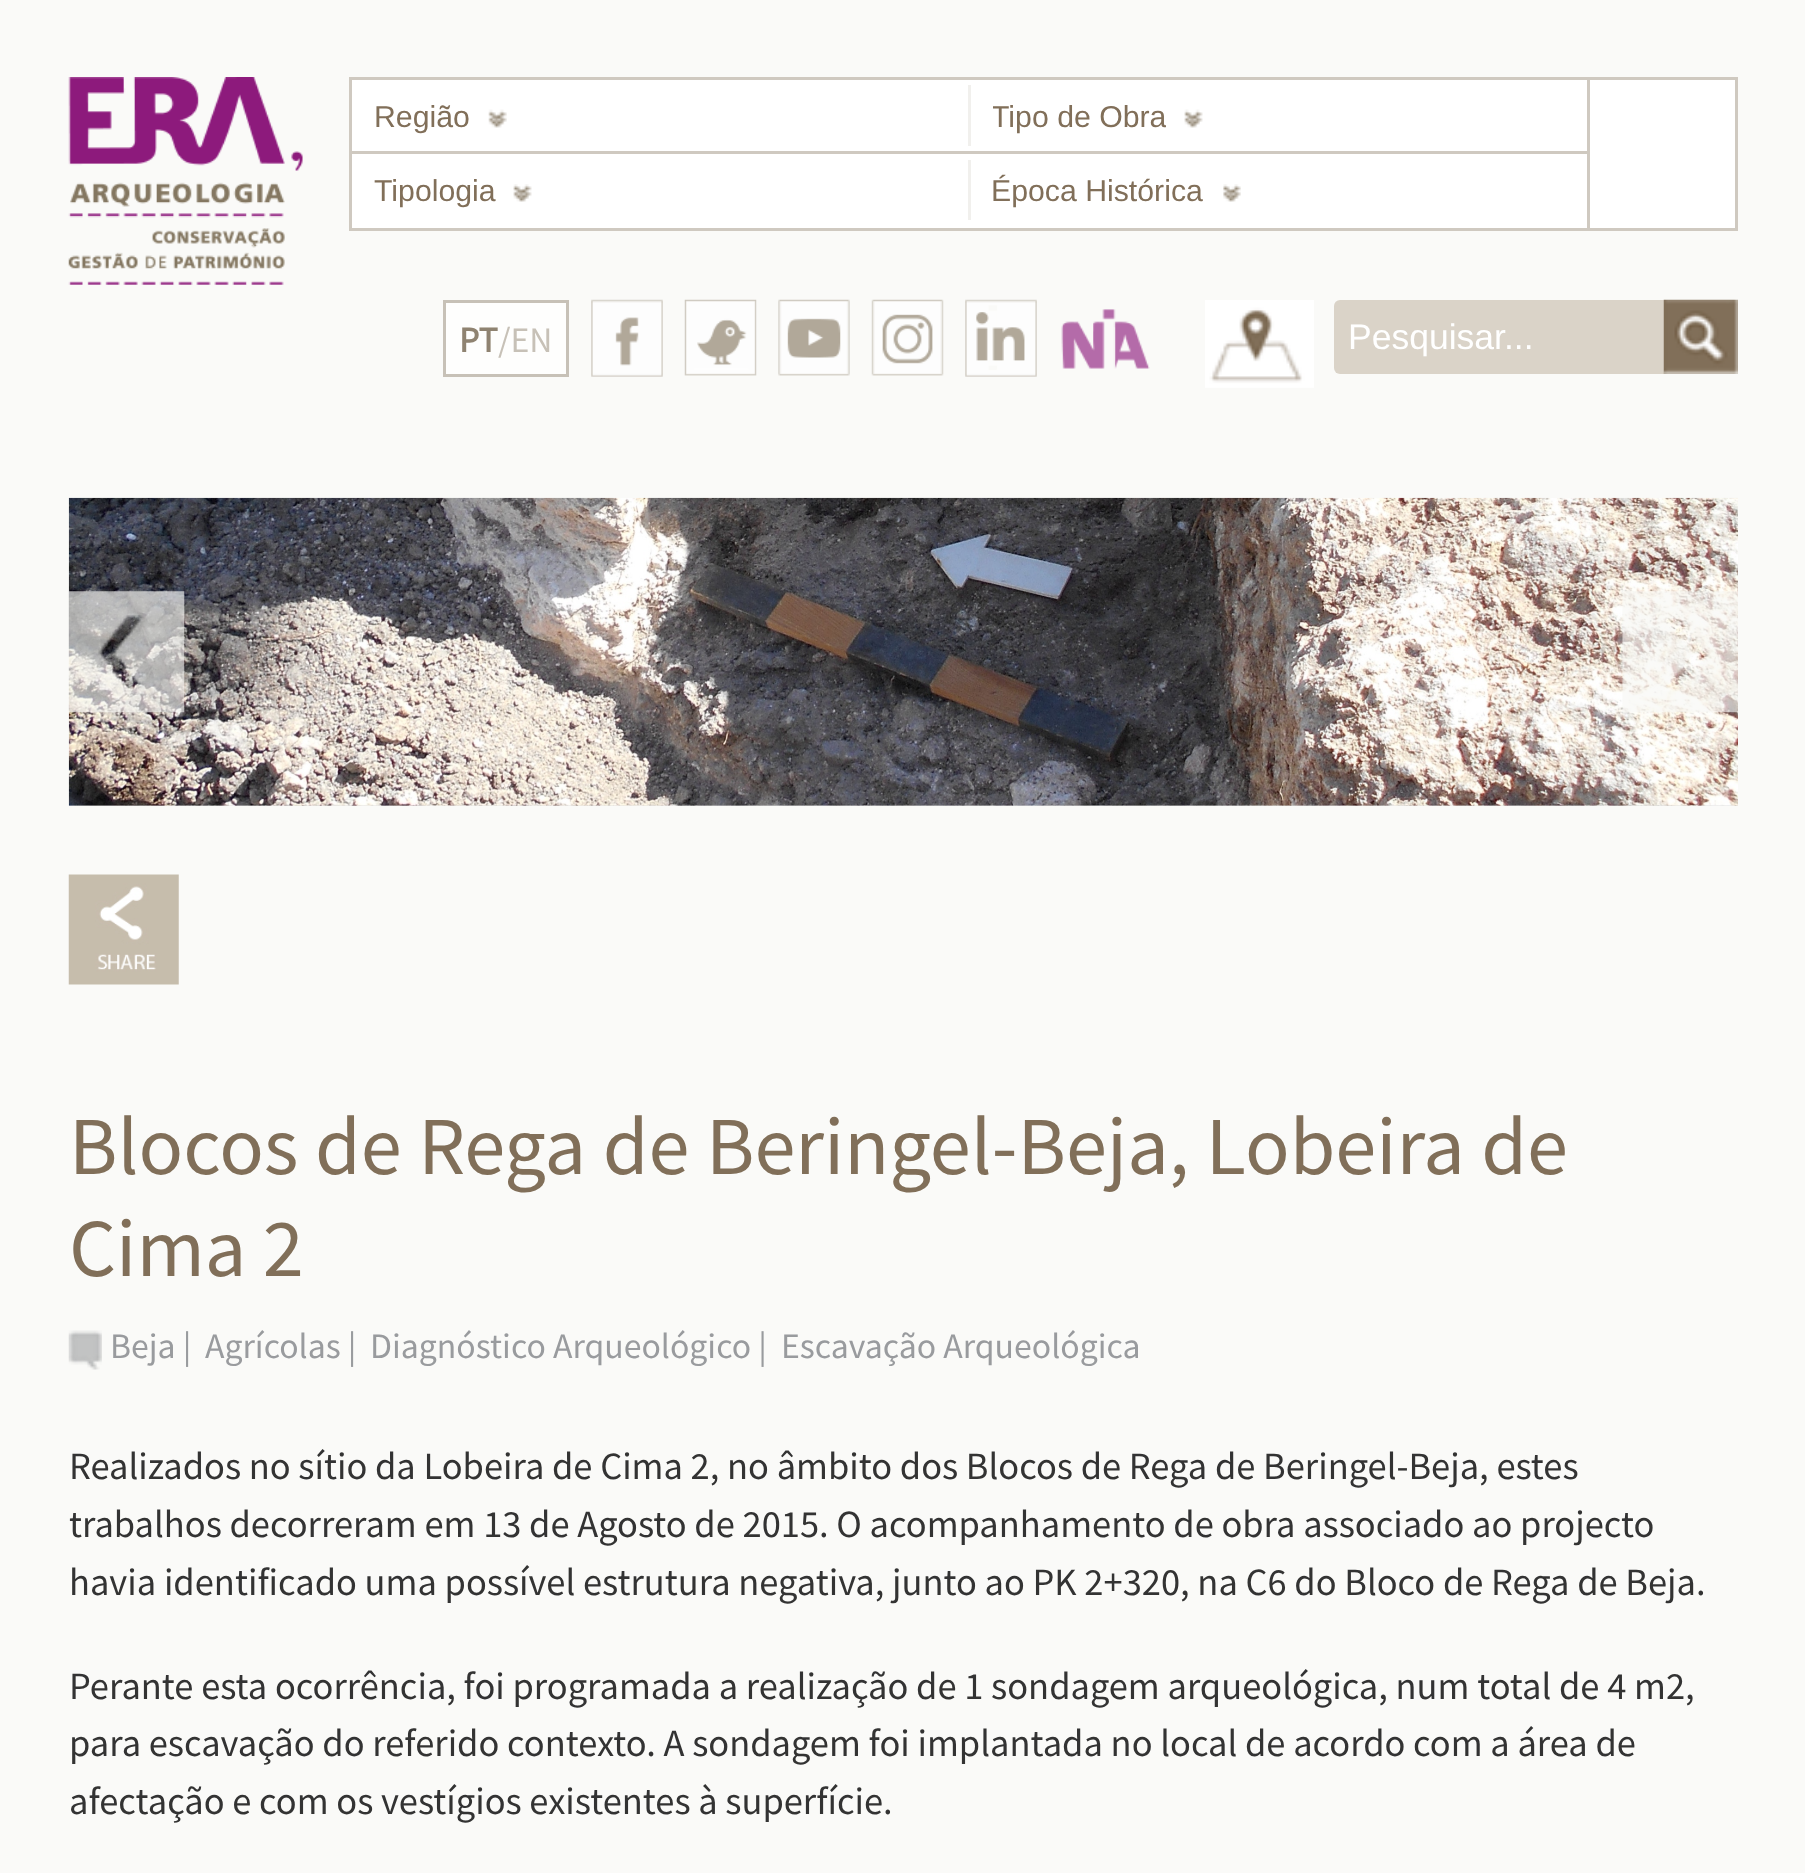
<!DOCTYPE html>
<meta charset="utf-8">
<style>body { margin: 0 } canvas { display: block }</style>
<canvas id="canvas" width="1805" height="1873"></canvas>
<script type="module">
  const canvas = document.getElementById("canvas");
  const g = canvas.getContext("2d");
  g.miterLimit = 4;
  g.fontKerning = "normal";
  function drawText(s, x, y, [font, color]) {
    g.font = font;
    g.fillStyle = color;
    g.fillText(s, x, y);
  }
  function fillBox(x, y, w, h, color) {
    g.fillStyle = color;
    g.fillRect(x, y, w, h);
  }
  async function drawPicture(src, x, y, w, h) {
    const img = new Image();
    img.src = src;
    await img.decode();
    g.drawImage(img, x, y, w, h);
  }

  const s1 = ["30.25px Liberation Sans", "#816F59"];
  const s2 = ["bold 35.75px Source Sans Pro", "#8F8371"];
  const s3 = ["35.75px Source Sans Pro", "#C7C1B7"];
  const s4 = ["35.5px Liberation Sans", "#FFFFFF"];
  const s5 = ["82.5px Source Sans Pro", "#816F59"];
  const s6 = ["35.75px Source Sans Pro", "#999B9E"];
  const s7 = ["38.5px Source Sans Pro", "#333333"];

  fillBox(0, 0, 1805, 1873, "#FAFAF8");
  await drawPicture("pic1.png", 68, 77, 235, 208);
  g.fillStyle = "#FFFFFF";
  g.beginPath();
  g.rect(350.5, 78.5, 1386, 151);
  g.fill();
  g.strokeStyle = "#CFC9C0";
  g.lineWidth = 3;
  g.stroke();
  drawText("Região", 374, 127, s1);
  await drawPicture("pic2.png", 488, 109, 19, 19);
  fillBox(968, 85, 3, 61, "#F1F0ED");
  g.save();
  g.beginPath();
  g.rect(993, 80, 173, 71);
  g.clip();
  drawText("Tipo de Obra", 991, 127, s1);
  g.restore();
  await drawPicture("pic3.png", 1184, 109, 19, 19);
  fillBox(1587, 80, 3, 148, "#CFC9C0");
  fillBox(352, 151, 1235, 3, "#CFC9C0");
  drawText("Tipologia", 374, 201, s1);
  await drawPicture("pic4.png", 513, 184, 19, 18);
  fillBox(968, 160, 3, 60, "#F1F0ED");
  drawText("Época Histórica", 991, 201, s1);
  await drawPicture("pic5.png", 1223, 184, 18, 18);
  g.fillStyle = "#FEFEFD";
  g.beginPath();
  g.rect(444.5, 301.5, 123, 74);
  g.fill();
  g.strokeStyle = "#C7C1B7";
  g.stroke();
  drawText("PT", 459, 352, s2);
  drawText("/EN", 498, 352, s3);
  await drawPicture("pic6.png", 591, 299, 72, 78);
  await drawPicture("pic7.png", 684, 299, 73, 77);
  await drawPicture("pic8.png", 778, 299, 72, 77);
  await drawPicture("pic9.png", 871, 299, 73, 77);
  await drawPicture("pic10.png", 965, 299, 72, 78);
  await drawPicture("pic11.png", 1061, 309, 89, 60);
  await drawPicture("pic12.png", 1205, 300, 109, 88);
  g.fillStyle = "#DAD3C8";
  g.beginPath();
  g.roundRect(1334, 300, 330, 74, [6, 0, 0, 6]);
  g.fill();
  drawText("Pesquisar...", 1348, 349, s4);
  await drawPicture("pic13.png", 1663, 299, 75, 75);
  fillBox(69, 805, 1669, 1, "#DDDDDD");
  await drawPicture("pic14.png", 68, 497, 1670, 309);
  await drawPicture("pic15.png", 69, 591, 116, 122);
  await drawPicture("pic16.png", 1622, 591, 116, 122);
  await drawPicture("pic17.png", 68, 874, 111, 111);
  drawText("Blocos de Rega de Beringel-Beja, Lobeira de", 69, 1174, s5);
  drawText("Cima 2", 69, 1276, s5);
  await drawPicture("pic18.png", 68, 1330, 34, 40);
  drawText("Beja |", 110, 1358, s6);
  drawText("Agrícolas |", 205, 1358, s6);
  drawText("Diagnóstico Arqueológico |", 370, 1358, s6);
  drawText("Escavação Arqueológica", 781, 1358, s6);
  drawText("Realizados no sítio da Lobeira de Cima 2, no âmbito dos Blocos de Rega de Beringel-Beja, estes", 69, 1479, s7);
  drawText("trabalhos decorreram em 13 de Agosto de 2015. O acompanhamento de obra associado ao projecto", 69, 1537, s7);
  drawText("havia identificado uma possível estrutura negativa, junto ao PK 2+320, na C6 do Bloco de Rega de Beja.", 69, 1595, s7);
  drawText("Perante esta ocorrência, foi programada a realização de 1 sondagem arqueológica, num total de 4 m2,", 69, 1699, s7);
  drawText("para escavação do referido contexto. A sondagem foi implantada no local de acordo com a área de", 69, 1756, s7);
  drawText("afectação e com os vestígios existentes à superfície.", 69, 1814, s7);
</script>
